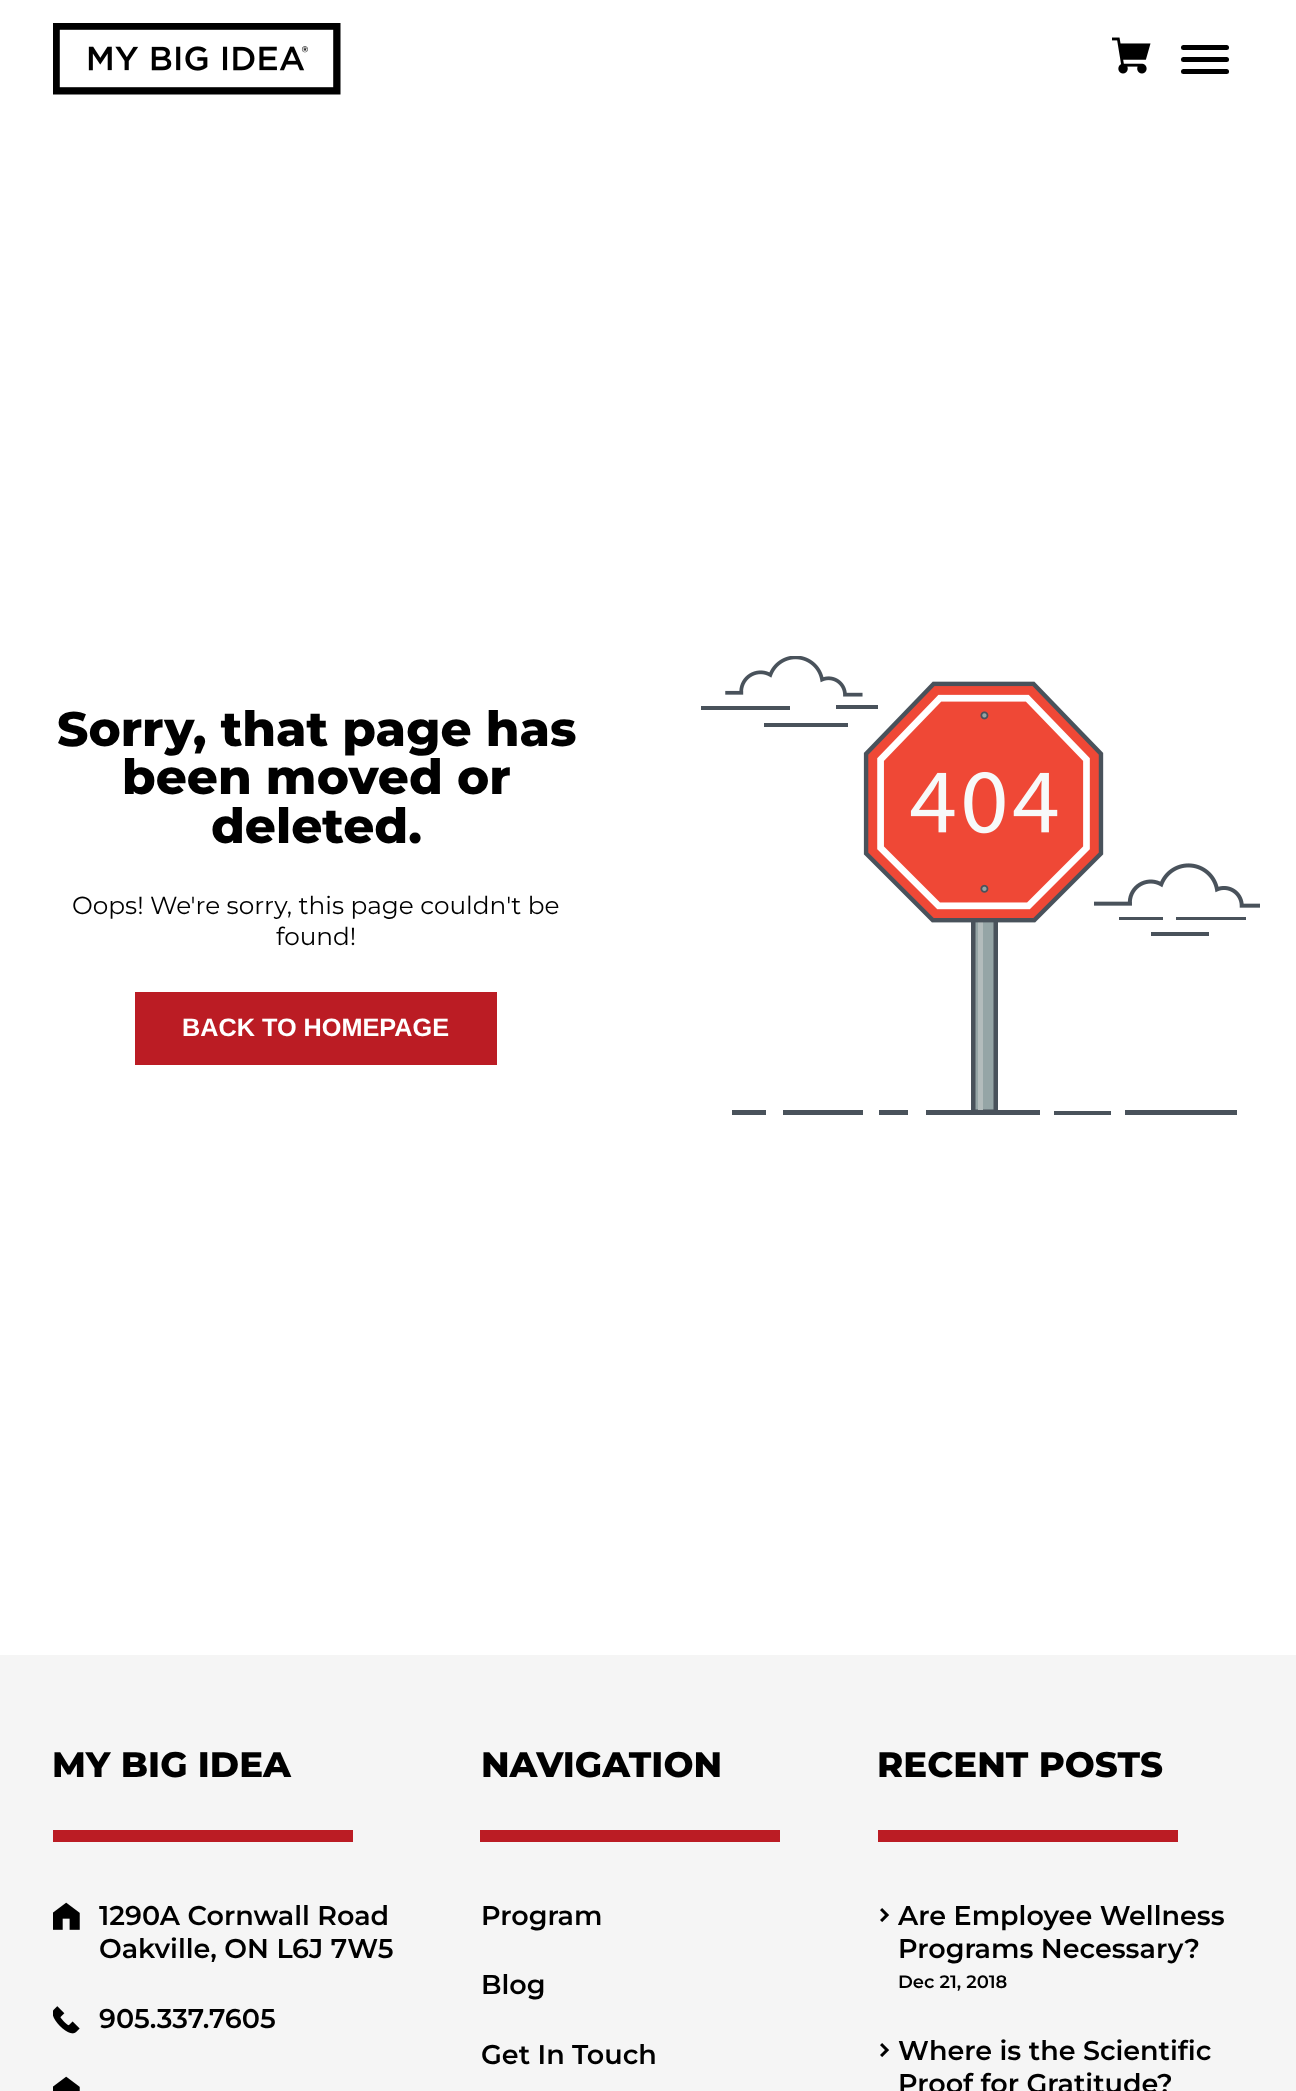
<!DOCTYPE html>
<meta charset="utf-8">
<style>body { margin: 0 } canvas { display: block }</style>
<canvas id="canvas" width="1296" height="2091"></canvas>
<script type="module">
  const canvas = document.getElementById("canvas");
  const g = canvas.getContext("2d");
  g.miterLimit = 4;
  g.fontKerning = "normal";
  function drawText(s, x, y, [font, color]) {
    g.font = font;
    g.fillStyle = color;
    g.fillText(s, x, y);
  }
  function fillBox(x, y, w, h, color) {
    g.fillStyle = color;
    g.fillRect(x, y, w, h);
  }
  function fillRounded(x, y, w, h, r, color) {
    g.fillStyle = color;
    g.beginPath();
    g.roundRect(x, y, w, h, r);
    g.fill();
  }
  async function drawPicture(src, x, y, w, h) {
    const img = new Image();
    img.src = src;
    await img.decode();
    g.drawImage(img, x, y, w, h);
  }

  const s1 = ["800 48.5px Montserrat", "#000000"];
  const s2 = ["24.75px Montserrat", "#000000"];
  const s3 = ["bold 25.25px Liberation Sans", "#FFFFFF"];
  const s4 = ["800 35.5px Montserrat", "#000000"];
  const s5 = ["600 27px Montserrat", "#000000"];
  const s6 = ["600 18px Montserrat", "#000000"];

  fillBox(0, 0, 1296, 2091, "#FFFFFF");
  await drawPicture("pic1.png", 53, 23, 288, 72);
  await drawPicture("pic2.png", 1112, 37, 39, 37);
  fillRounded(1181, 45, 48, 5, 2.5, "#000000");
  fillRounded(1181, 57, 48, 5, 2.5, "#000000");
  fillRounded(1181, 69, 48, 5, 2.5, "#000000");
  drawText("Sorry, that page has", 57, 746, s1);
  drawText("been moved or", 122, 794, s1);
  drawText("deleted.", 211, 843, s1);
  drawText("Oops! We're sorry, this page couldn't be", 72, 914, s2);
  drawText("found!", 276, 945, s2);
  fillBox(135, 992, 362, 73, "#BB1C24");
  drawText("BACK TO HOMEPAGE", 182, 1036, s3);
  await drawPicture("pic3.png", 701, 656, 559, 459);
  fillBox(0, 1655, 1296, 436, "#F5F5F5");
  drawText("MY BIG IDEA", 52, 1777, s4);
  fillBox(53, 1830, 300, 12, "#BB1C24");
  await drawPicture("pic4.png", 53, 1902, 27, 28);
  drawText("1290A Cornwall Road", 99, 1925, s5);
  drawText("Oakville, ON L6J 7W5", 99, 1958, s5);
  await drawPicture("pic5.png", 53, 2006, 27, 28);
  drawText("905.337.7605", 99, 2028, s5);
  await drawPicture("pic6.png", 53, 2076, 27, 15);
  drawText("NAVIGATION", 481, 1777, s4);
  fillBox(480, 1830, 300, 12, "#BB1C24");
  drawText("Program", 481, 1925, s5);
  drawText("Blog", 481, 1994, s5);
  drawText("Get In Touch", 481, 2064, s5);
  drawText("RECENT POSTS", 877, 1777, s4);
  fillBox(878, 1830, 300, 12, "#BB1C24");
  await drawPicture("pic7.png", 880, 1908, 10, 14);
  drawText("Are Employee Wellness", 898, 1925, s5);
  drawText("Programs Necessary?", 898, 1958, s5);
  drawText("Dec 21, 2018", 898, 1988, s6);
  await drawPicture("pic7.png", 880, 2043, 10, 14);
  drawText("Where is the Scientific", 898, 2060, s5);
  drawText("Proof for Gratitude?", 898, 2093, s5);
</script>
